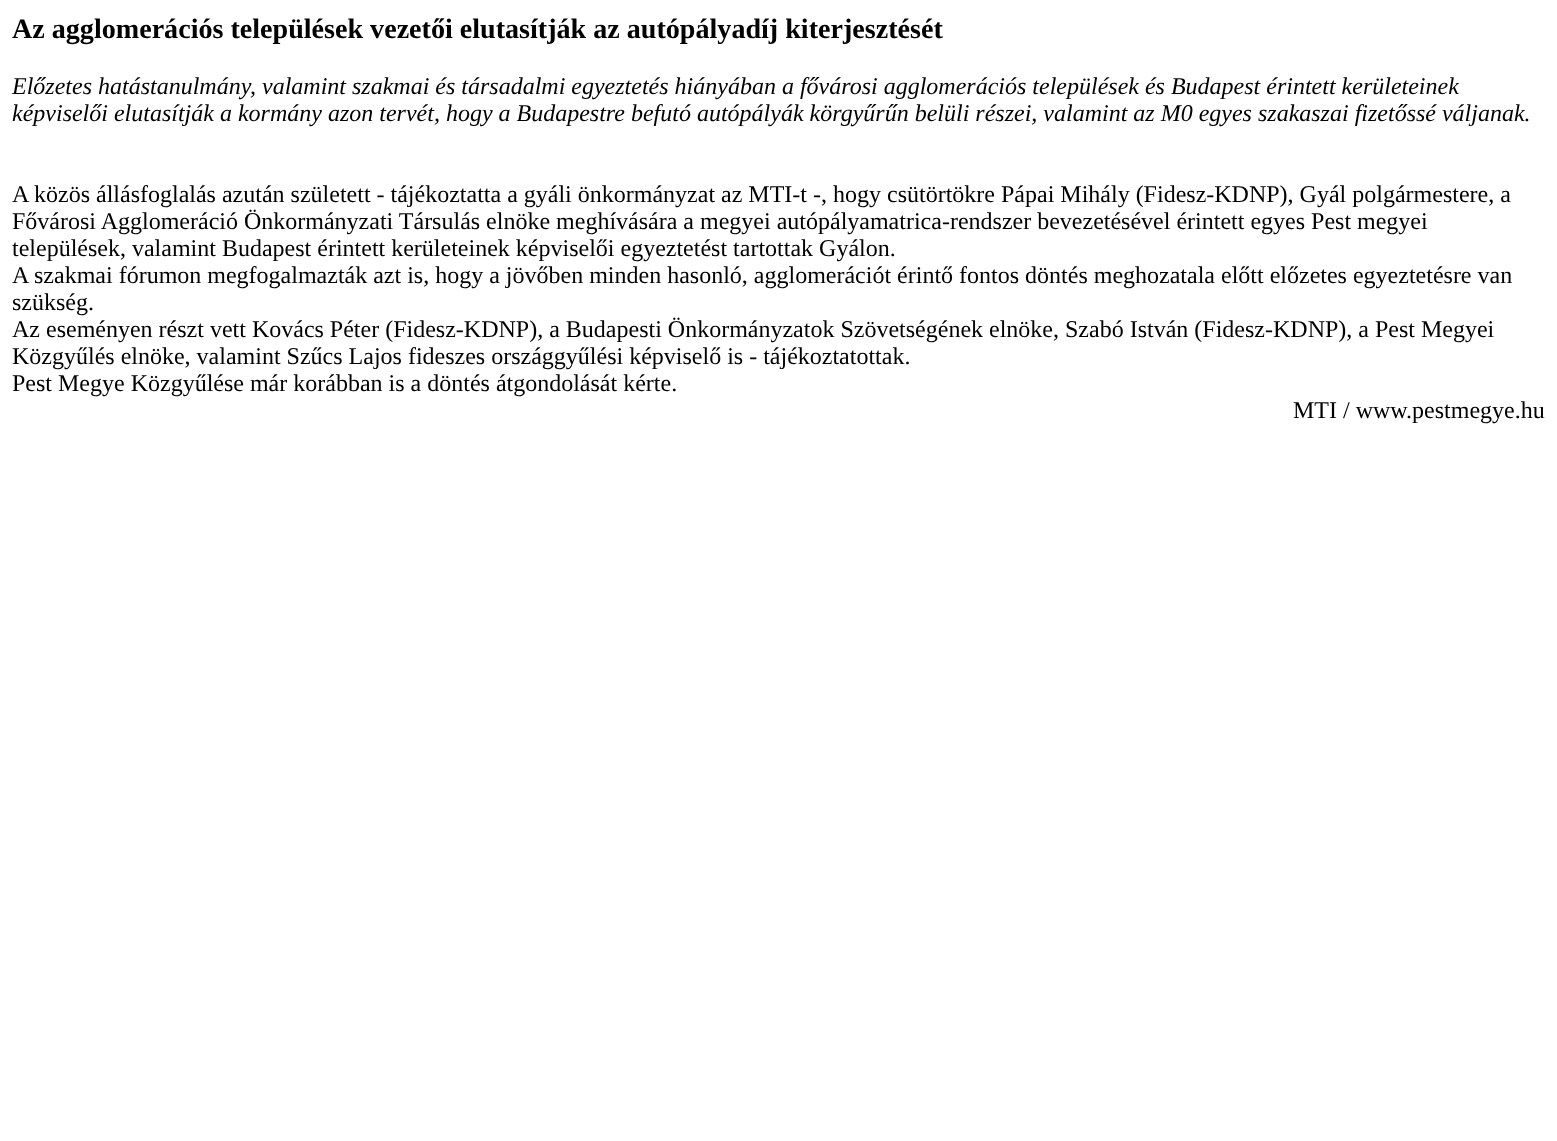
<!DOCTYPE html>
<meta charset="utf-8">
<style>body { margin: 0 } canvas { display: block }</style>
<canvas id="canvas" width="1557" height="1141"></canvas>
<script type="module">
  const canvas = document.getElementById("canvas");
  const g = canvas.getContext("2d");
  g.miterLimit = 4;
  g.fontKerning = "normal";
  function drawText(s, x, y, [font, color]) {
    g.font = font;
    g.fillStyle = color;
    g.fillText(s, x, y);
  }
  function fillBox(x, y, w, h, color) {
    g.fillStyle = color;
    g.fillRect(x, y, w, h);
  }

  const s1 = ["bold 28.1px Liberation Serif", "#000000"];
  const s2 = ["italic 24px Liberation Serif", "#000000"];
  const s3 = ["24px Liberation Serif", "#000000"];

  fillBox(0, 0, 1557, 1141, "#FFFFFF");
  drawText("Az agglomerációs települések vezetői elutasítják az autópályadíj kiterjesztését", 12, 38, s1);
  drawText("Előzetes hatástanulmány, valamint szakmai és társadalmi egyeztetés hiányában a fővárosi agglomerációs települések és Budapest érintett kerületeinek", 12, 94, s2);
  drawText("képviselői elutasítják a kormány azon tervét, hogy a Budapestre befutó autópályák körgyűrűn belüli részei, valamint az M0 egyes szakaszai fizetőssé váljanak.", 12, 121, s2);
  drawText("A közös állásfoglalás azután született - tájékoztatta a gyáli önkormányzat az MTI-t -, hogy csütörtökre Pápai Mihály (Fidesz-KDNP), Gyál polgármestere, a", 12, 202, s3);
  drawText("Fővárosi Agglomeráció Önkormányzati Társulás elnöke meghívására a megyei autópályamatrica-rendszer bevezetésével érintett egyes Pest megyei", 12, 229, s3);
  drawText("települések, valamint Budapest érintett kerületeinek képviselői egyeztetést tartottak Gyálon.", 12, 256, s3);
  drawText("A szakmai fórumon megfogalmazták azt is, hogy a jövőben minden hasonló, agglomerációt érintő fontos döntés meghozatala előtt előzetes egyeztetésre van", 12, 283, s3);
  drawText("szükség.", 12, 310, s3);
  drawText("Az eseményen részt vett Kovács Péter (Fidesz-KDNP), a Budapesti Önkormányzatok Szövetségének elnöke, Szabó István (Fidesz-KDNP), a Pest Megyei", 12, 337, s3);
  drawText("Közgyűlés elnöke, valamint Szűcs Lajos fideszes országgyűlési képviselő is - tájékoztatottak.", 12, 364, s3);
  drawText("Pest Megye Közgyűlése már korábban is a döntés átgondolását kérte.", 12, 391, s3);
  drawText("MTI / www.pestmegye.hu", 1293, 418, s3);
</script>
